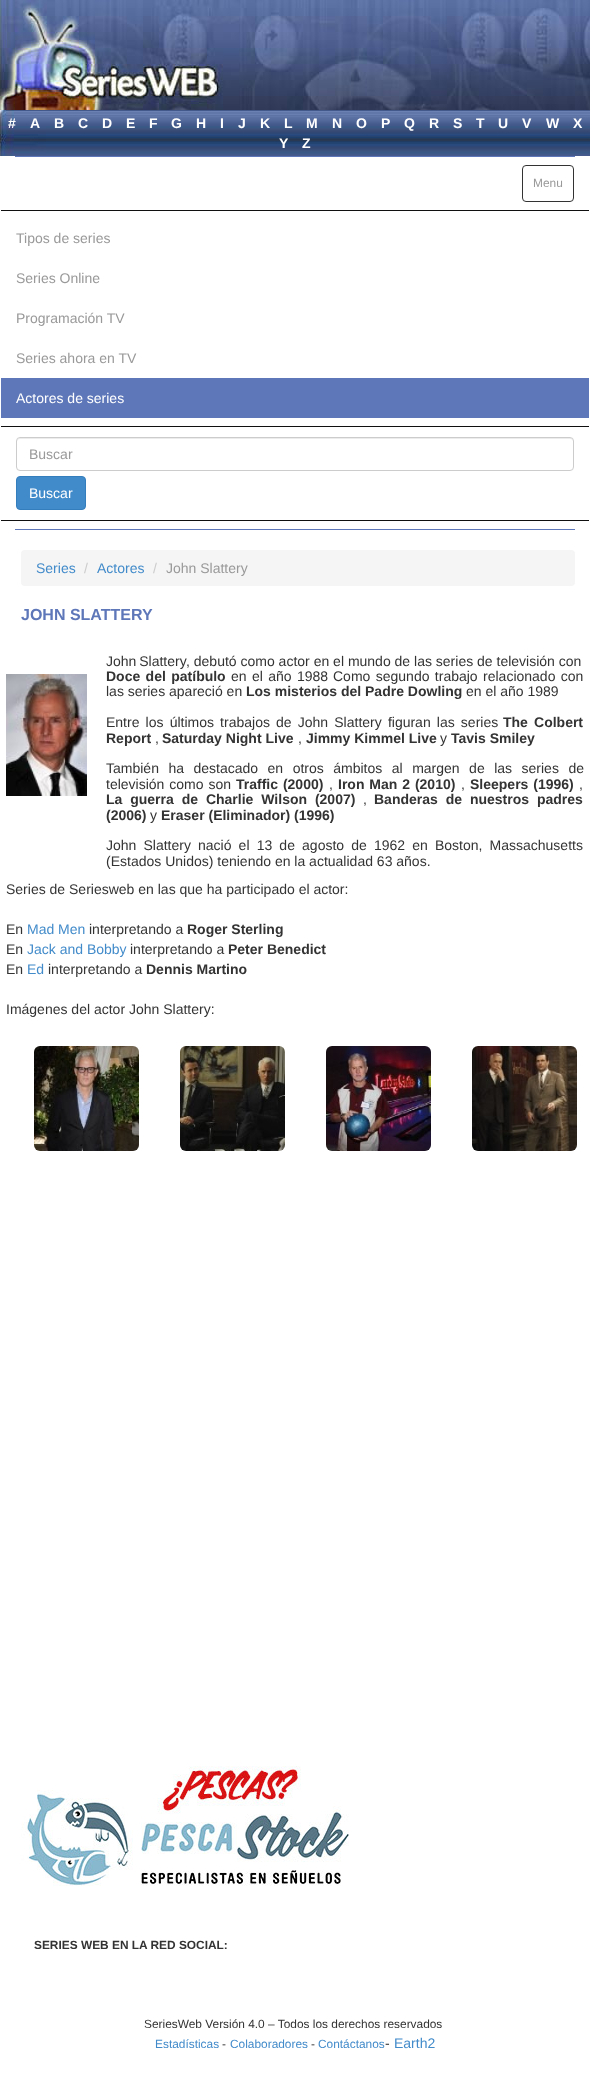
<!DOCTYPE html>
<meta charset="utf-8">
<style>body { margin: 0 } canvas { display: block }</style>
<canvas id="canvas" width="590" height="2079"></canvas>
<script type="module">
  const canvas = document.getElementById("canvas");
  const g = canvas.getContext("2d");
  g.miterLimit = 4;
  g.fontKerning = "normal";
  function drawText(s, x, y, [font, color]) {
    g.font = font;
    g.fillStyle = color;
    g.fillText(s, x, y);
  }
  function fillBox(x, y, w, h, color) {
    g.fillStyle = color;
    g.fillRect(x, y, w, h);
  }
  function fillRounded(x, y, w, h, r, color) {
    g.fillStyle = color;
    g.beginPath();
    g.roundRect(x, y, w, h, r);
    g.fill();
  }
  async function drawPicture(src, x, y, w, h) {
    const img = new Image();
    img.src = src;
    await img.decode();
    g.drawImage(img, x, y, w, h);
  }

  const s1 = ["bold 14px Liberation Sans", "#FFFFFF"];
  const s2 = ["11.9px Liberation Sans", "#999999"];
  const s3 = ["14px Liberation Sans", "#999999"];
  const s4 = ["14px Liberation Sans", "#FFFFFF"];
  const s5 = ["14px Liberation Sans", "#428BCA"];
  const s6 = ["14px Liberation Sans", "#CCCCCC"];
  const s7 = ["bold 16px Liberation Sans", "#5E77B9"];
  const s8 = ["14px Liberation Sans", "#333333"];
  const s9 = ["bold 14px Liberation Sans", "#333333"];
  const s10 = ["bold 11.9px Liberation Sans", "#333333"];
  const s11 = ["11.9px Liberation Sans", "#333333"];
  const s12 = ["11.9px Liberation Sans", "#428BCA"];

  fillBox(0, 0, 590, 2079, "#FFFFFF");
  await drawPicture("pic1.png", 0, 0, 590, 110);
  await drawPicture("pic2.png", 0, 110, 590, 46);
  drawText("#", 8, 128, s1);
  drawText("A", 30, 128, s1);
  drawText("B", 54, 128, s1);
  drawText("C", 78, 128, s1);
  drawText("D", 102, 128, s1);
  drawText("E", 126, 128, s1);
  drawText("F", 149, 128, s1);
  drawText("G", 171, 128, s1);
  drawText("H", 196, 128, s1);
  drawText("I", 220, 128, s1);
  drawText("J", 238, 128, s1);
  drawText("K", 260, 128, s1);
  drawText("L", 284, 128, s1);
  drawText("M", 306, 128, s1);
  drawText("N", 332, 128, s1);
  drawText("O", 356, 128, s1);
  drawText("P", 381, 128, s1);
  drawText("Q", 404, 128, s1);
  drawText("R", 429, 128, s1);
  drawText("S", 453, 128, s1);
  drawText("T", 476, 128, s1);
  drawText("U", 498, 128, s1);
  drawText("V", 522, 128, s1);
  drawText("W", 546, 128, s1);
  drawText("X", 573, 128, s1);
  drawText("Y", 279, 148, s1);
  drawText("Z", 302, 148, s1);
  g.strokeStyle = "#5E77B9";
  g.strokeRect(15.5, 156.5, 559, 373);
  fillBox(15, 157, 560, 372, "#FFFFFF");
  g.beginPath();
  g.roundRect(522.5, 165.5, 51, 36, 3.5);
  g.strokeStyle = "#333333";
  g.stroke();
  drawText("Menu", 533, 187, s2);
  fillBox(1, 210, 588, 1, "#101010");
  drawText("Tipos de series", 16, 243, s3);
  drawText("Series Online", 16, 283, s3);
  drawText("Programación TV", 16, 323, s3);
  drawText("Series ahora en TV", 16, 363, s3);
  fillBox(1, 378, 588, 40, "#5E77B9");
  drawText("Actores de series", 16, 403, s4);
  fillBox(1, 426, 588, 1, "#101010");
  fillBox(1, 520, 588, 1, "#101010");
  g.fillStyle = "#ECECEC";
  g.beginPath();
  g.moveTo(20, 439);
  g.lineTo(570, 439);
  g.bezierCurveTo(572, 439, 573, 440, 573, 442);
  g.bezierCurveTo(573, 440, 572, 438, 570, 438);
  g.lineTo(20, 438);
  g.lineTo(18, 439);
  g.lineTo(17, 440);
  g.lineTo(17, 442);
  g.bezierCurveTo(17, 440, 18, 439, 20, 439);
  g.closePath();
  g.fill();
  g.beginPath();
  g.roundRect(16.5, 437.5, 557, 33, 3.5);
  g.strokeStyle = "#CCCCCC";
  g.stroke();
  drawText("Buscar", 29, 459, s3);
  g.fillStyle = "#428BCA";
  g.beginPath();
  g.roundRect(16.5, 476.5, 69, 33, 3.5);
  g.fill();
  g.strokeStyle = "#357EBD";
  g.stroke();
  drawText("Buscar", 29, 498, s4);
  fillRounded(21, 550, 554, 36, 4, "#F5F5F5");
  drawText("Series", 36, 573, s5);
  drawText("/", 84, 573, s6);
  drawText("Actores", 97, 573, s5);
  drawText("/", 153, 573, s6);
  drawText("John Slattery", 166, 573, s3);
  drawText("JOHN SLATTERY", 21, 620, s7);
  await drawPicture("pic3.png", 6, 674, 81, 122);
  g.wordSpacing = "-1px";
  drawText("John Slattery", 106, 666, s8);
  g.wordSpacing = "0px";
  drawText(", debutó como actor en el mundo de las series de televisión con", 186, 666, s8);
  g.wordSpacing = "1.5px";
  drawText("Doce del patíbulo", 106, 681, s9);
  drawText("en el año 1988", 231, 681, s8);
  drawText("Como segundo trabajo relacionado con", 333, 681, s8);
  g.wordSpacing = "0px";
  drawText("las series apareció en", 106, 696, s8);
  drawText("Los misterios del Padre Dowling", 246, 696, s9);
  drawText("en el año 1989", 466, 696, s8);
  g.wordSpacing = "2.25px";
  drawText("Entre los últimos trabajos de John Slattery figuran las series", 106, 727, s8);
  drawText("The Colbert", 503, 727, s9);
  g.wordSpacing = "0px";
  drawText("Report", 106, 743, s9);
  drawText(",", 155, 743, s8);
  drawText("Saturday Night Live", 162, 743, s9);
  drawText(",", 298, 743, s8);
  drawText("Jimmy Kimmel Live", 306, 743, s9);
  drawText("y", 440, 743, s8);
  drawText("Tavis Smiley", 451, 743, s9);
  g.wordSpacing = "5.6px";
  drawText("También ha destacado en otros ámbitos al margen de las series de", 106, 773, s8);
  g.wordSpacing = "1px";
  drawText("televisión como son", 106, 789, s8);
  drawText("Traffic (2000)", 236, 789, s9);
  g.wordSpacing = "0px";
  drawText(",", 329, 789, s8);
  g.wordSpacing = "1px";
  drawText("Iron Man 2 (2010)", 338, 789, s9);
  g.wordSpacing = "0px";
  drawText(",", 461, 789, s8);
  g.wordSpacing = "1px";
  drawText("Sleepers (1996)", 470, 789, s9);
  g.wordSpacing = "0px";
  drawText(",", 579, 789, s8);
  g.wordSpacing = "4px";
  drawText("La guerra de Charlie Wilson (2007)", 106, 804, s9);
  g.wordSpacing = "0px";
  drawText(",", 363, 804, s8);
  g.wordSpacing = "4px";
  drawText("Banderas de nuestros padres", 374, 804, s9);
  g.wordSpacing = "0px";
  drawText("(2006)", 106, 820, s9);
  drawText("y", 150, 820, s8);
  drawText("Eraser (Eliminador) (1996)", 161, 820, s9);
  g.wordSpacing = "3.25px";
  drawText("John Slattery", 106, 850, s8);
  drawText("nació el 13 de agosto de 1962 en Boston, Massachusetts", 198, 850, s8);
  g.wordSpacing = "0px";
  drawText("(Estados Unidos) teniendo en la actualidad 63 años.", 106, 866, s8);
  drawText("Series de Seriesweb en las que ha participado el actor:", 6, 894, s8);
  drawText("En", 6, 934, s8);
  drawText("Mad Men", 27, 934, s5);
  drawText("interpretando a", 89, 934, s8);
  drawText("Roger Sterling", 187, 934, s9);
  drawText("En", 6, 954, s8);
  drawText("Jack and Bobby", 27, 954, s5);
  drawText("interpretando a", 130, 954, s8);
  drawText("Peter Benedict", 228, 954, s9);
  drawText("En", 6, 974, s8);
  drawText("Ed", 27, 974, s5);
  drawText("interpretando a", 48, 974, s8);
  drawText("Dennis Martino", 146, 974, s9);
  drawText("Imágenes del actor John Slattery:", 6, 1014, s8);
  await drawPicture("pic4.png", 34, 1046, 105, 105);
  await drawPicture("pic5.png", 180, 1046, 105, 105);
  await drawPicture("pic6.png", 326, 1046, 105, 105);
  await drawPicture("pic7.png", 472, 1046, 105, 105);
  await drawPicture("pic8.png", 21, 1766, 328, 120);
  drawText("SERIES WEB EN LA RED SOCIAL:", 34, 1949, s10);
  drawText("SeriesWeb Versión 4.0 – Todos los derechos reservados", 144, 2028, s11);
  drawText("Estadísticas", 155, 2048, s12);
  drawText("-", 222, 2048, s11);
  drawText("Colaboradores", 230, 2048, s12);
  drawText("-", 311, 2048, s11);
  drawText("Contáctanos", 318, 2048, s12);
  drawText("-", 385, 2048, s8);
  drawText("Earth2", 394, 2048, s5);
</script>
